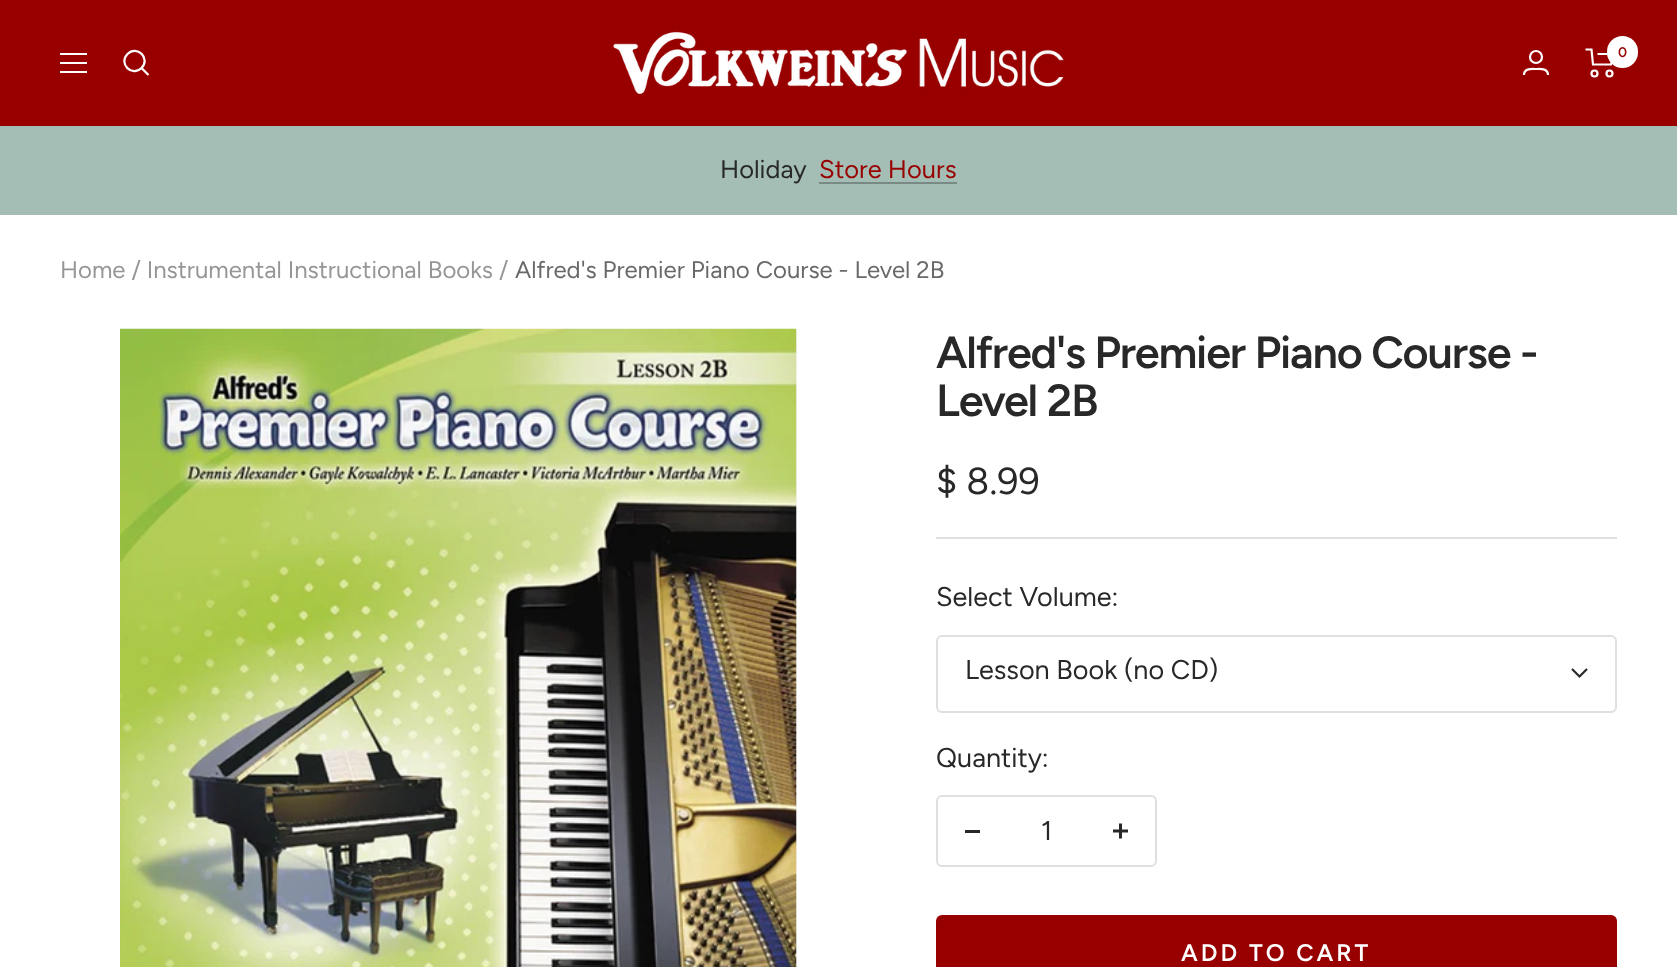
<!DOCTYPE html>
<meta charset="utf-8">
<style>body { margin: 0 } canvas { display: block }</style>
<canvas id="canvas" width="1677" height="967"></canvas>
<script type="module">
  const canvas = document.getElementById("canvas");
  const g = canvas.getContext("2d");
  g.miterLimit = 4;
  g.fontKerning = "normal";
  function drawText(s, x, y, [font, color]) {
    g.font = font;
    g.fillStyle = color;
    g.fillText(s, x, y);
  }
  function fillBox(x, y, w, h, color) {
    g.fillStyle = color;
    g.fillRect(x, y, w, h);
  }
  function fillRounded(x, y, w, h, r, color) {
    g.fillStyle = color;
    g.beginPath();
    g.roundRect(x, y, w, h, r);
    g.fill();
  }
  async function drawPicture(src, x, y, w, h) {
    const img = new Image();
    img.src = src;
    await img.decode();
    g.drawImage(img, x, y, w, h);
  }

  const s1 = ["600 14px Figtree", "#980000"];
  const s2 = ["25.5px Figtree", "#282828"];
  const s3 = ["25.5px Figtree", "#980000"];
  const s4 = ["24px Figtree", "#969696"];
  const s5 = ["24px Figtree", "#696969"];
  const s6 = ["600 45px Figtree", "#282828"];
  const s7 = ["37.5px Figtree", "#282828"];
  const s8 = ["27px Figtree", "#282828"];
  const s9 = ["600 24px Figtree", "#FFFFFF"];

  fillBox(0, 0, 1677, 967, "#FFFFFF");
  fillBox(0, 0, 1677, 126, "#980000");
  g.beginPath();
  g.moveTo(60, 54);
  g.lineTo(87, 54);
  g.moveTo(60, 72);
  g.lineTo(87, 72);
  g.closePath();
  g.moveTo(60, 63);
  g.lineTo(87, 63);
  g.closePath();
  g.strokeStyle = "#FFFFFF";
  g.lineWidth = 2.2;
  g.stroke();
  g.beginPath();
  g.moveTo(141.5, 68);
  g.bezierCurveTo(151, 58.5, 137, 44.5, 127.5, 54);
  g.bezierCurveTo(118, 63.5, 132, 77.5, 141.5, 68);
  g.closePath();
  g.moveTo(141.5, 68);
  g.lineTo(148.5, 75);
  g.stroke();
  await drawPicture("pic1.png", 613, 31, 451, 64);
  g.beginPath();
  g.arc(1536, 57, 6, 0, Math.PI * 2);
  g.stroke();
  g.beginPath();
  g.moveTo(1524, 75);
  g.bezierCurveTo(1524, 68, 1531.5, 69, 1536, 69);
  g.bezierCurveTo(1540.5, 69, 1548, 68, 1548, 75);
  g.stroke();
  g.beginPath();
  g.moveTo(1585.5, 49.5);
  g.lineTo(1591.5, 49.5);
  g.lineTo(1593, 64.5);
  g.lineTo(1611, 64.5);
  g.lineTo(1614, 54);
  g.lineTo(1597.5, 54);
  g.stroke();
  g.beginPath();
  g.arc(1594.5, 73.5, 3, 0, Math.PI * 2);
  g.stroke();
  g.beginPath();
  g.arc(1609.5, 73.5, 3, 0, Math.PI * 2);
  g.stroke();
  fillRounded(1607, 36, 31, 32, 15.5, "#FFFFFF");
  drawText("0", 1618, 57, s1);
  fillBox(0, 126, 1677, 89, "#A4BEB5");
  drawText("Holiday", 720, 178, s2);
  drawText("Store Hours", 819, 178, s3);
  fillBox(819, 182, 138, 2, "#798A84");
  drawText("Home / Instrumental Instructional Books /", 60, 278, s4);
  drawText("Alfred's Premier Piano Course - Level 2B", 515, 278, s5);
  fillBox(796, 329, 1, 638, "#F5F5F5");
  await drawPicture("pic2.png", 120, 328, 677, 639);
  fillBox(936, 537, 681, 2, "#DFDFDF");
  g.letterSpacing = "-1.2px";
  drawText("Alfred's Premier Piano Course -", 936, 368, s6);
  drawText("Level 2B", 936, 416, s6);
  g.letterSpacing = "0px";
  drawText("$ 8.99", 936, 494, s7);
  drawText("Select Volume:", 936, 606, s8);
  g.beginPath();
  g.roundRect(937, 636, 679, 76, 5);
  g.strokeStyle = "#DFDFDF";
  g.lineWidth = 2;
  g.stroke();
  drawText("Lesson Book (no CD)", 965, 679, s8);
  g.beginPath();
  g.moveTo(1572, 669);
  g.lineTo(1579.5, 676.5);
  g.lineTo(1587, 669);
  g.strokeStyle = "#282828";
  g.lineWidth = 2.2;
  g.stroke();
  drawText("Quantity:", 936, 767, s8);
  g.beginPath();
  g.roundRect(937, 796, 219, 70, 5);
  g.strokeStyle = "#DFDFDF";
  g.lineWidth = 2;
  g.stroke();
  fillBox(965, 830, 15, 3, "#282828");
  drawText("1", 1041, 840, s8);
  await drawPicture("pic3.png", 1113, 823, 15, 16);
  fillRounded(936, 915, 681, 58, 6, "#980000");
  g.letterSpacing = "3px";
  drawText("ADD TO CART", 1181, 961, s9);
</script>
